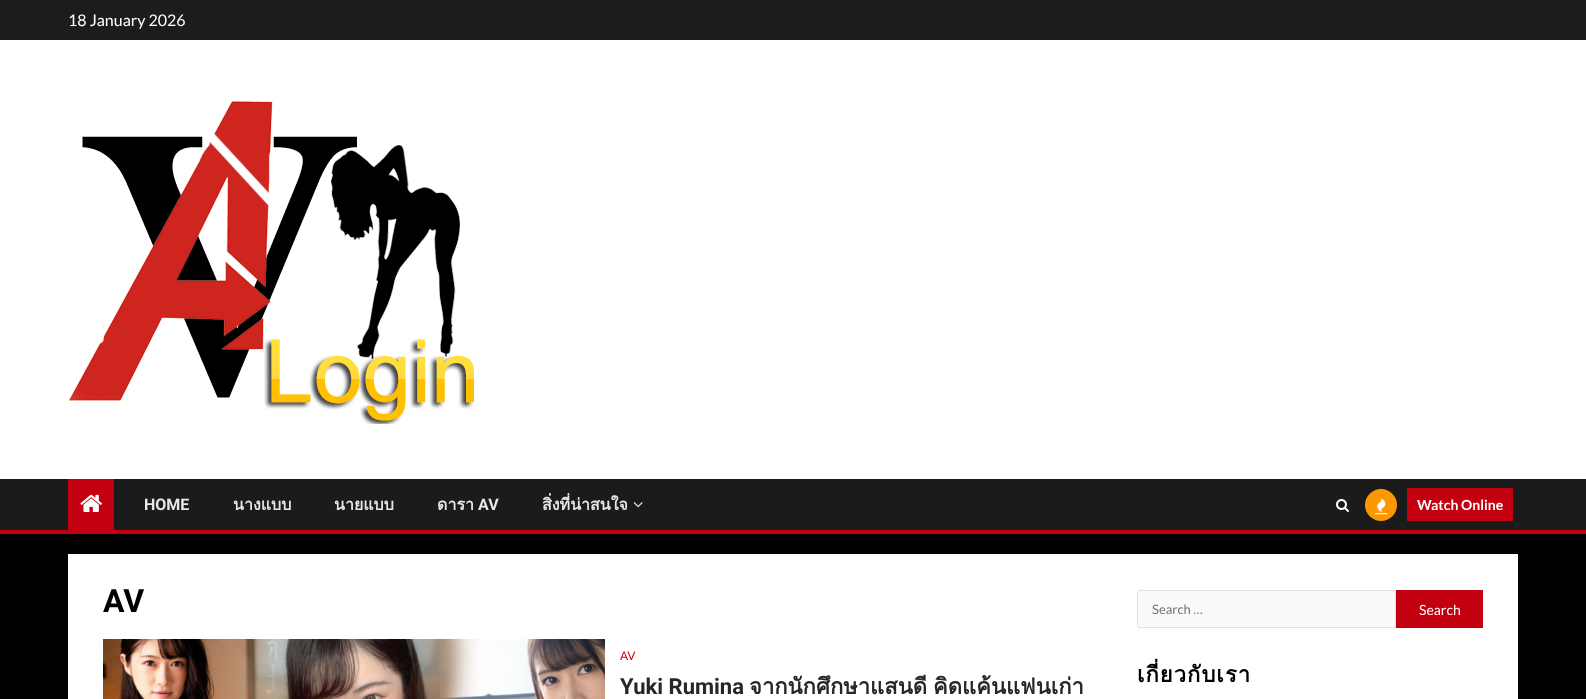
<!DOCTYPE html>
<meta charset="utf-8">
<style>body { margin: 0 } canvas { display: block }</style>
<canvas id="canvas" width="1586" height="699"></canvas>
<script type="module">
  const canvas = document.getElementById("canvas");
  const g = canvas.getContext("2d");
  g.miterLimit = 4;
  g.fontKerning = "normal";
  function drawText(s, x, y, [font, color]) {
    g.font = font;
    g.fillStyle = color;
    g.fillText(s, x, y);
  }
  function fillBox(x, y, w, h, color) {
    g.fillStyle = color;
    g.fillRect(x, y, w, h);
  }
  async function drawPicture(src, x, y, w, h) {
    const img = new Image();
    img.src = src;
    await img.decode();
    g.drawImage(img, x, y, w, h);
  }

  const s1 = ["16px Lato", "#FFFFFF"];
  const s2 = ["bold 16px Roboto", "#E8E8E8"];
  const s3 = ["bold 16px Loma", "#E8E8E8"];
  const s4 = ["bold 14px Lato", "#FFFFFF"];
  const s5 = ["bold 32px Roboto", "#000000"];
  const s6 = ["12px Lato", "#CC0010"];
  const s7 = ["bold 22px Roboto", "#272727"];
  const s8 = ["bold 22px Loma", "#272727"];
  const s9 = ["13px Lato", "#757575"];
  const s10 = ["14px Lato", "#FFFFFF"];
  const s11 = ["bold 22px Loma", "#000000"];

  fillBox(0, 0, 1586, 699, "#020000");
  fillBox(0, 40, 1586, 439, "#FFFFFF");
  fillBox(0, 0, 1586, 40, "#1C1C1C");
  drawText("18 January 2026", 68, 26, s1);
  await drawPicture("pic1.png", 68, 101, 406, 323);
  fillBox(0, 479, 1586, 51, "#1B1B1B");
  fillBox(0, 530, 1586, 4, "#C30010");
  fillBox(68, 479, 46, 51, "#C30010");
  await drawPicture("pic2.png", 80, 494, 22, 18);
  drawText("HOME", 144, 510, s2);
  drawText("นางแบบ", 233, 510, s3);
  drawText("นายแบบ", 334, 510, s3);
  drawText("ดารา", 437, 510, s3);
  drawText("AV", 478, 510, s2);
  drawText("สิ่งที่น่าสนใจ", 542, 510, s3);
  await drawPicture("pic3.png", 633, 502, 10, 6);
  await drawPicture("pic4.png", 1336, 499, 13, 13);
  g.fillStyle = "#FF9800";
  g.beginPath();
  g.arc(1381, 505, 16, 0, Math.PI * 2);
  g.fill();
  await drawPicture("pic5.png", 1375, 498, 13, 17);
  fillBox(1407, 488, 106, 33, "#C30010");
  drawText("Watch Online", 1417, 510, s4);
  fillBox(68, 554, 1450, 145, "#FFFFFF");
  drawText("AV", 103, 612, s5);
  await drawPicture("pic6.png", 103, 639, 502, 60);
  drawText("AV", 620, 660, s6);
  drawText("Yuki Rumina", 620, 694, s7);
  drawText("จากนักศึกษาแสนดี", 749, 694, s8);
  drawText("คิดแค้นแฟนเก่า", 933, 694, s8);
  g.fillStyle = "#FAFAFA";
  g.beginPath();
  g.roundRect(1137.5, 590.5, 258, 37, [2.5, 0, 0, 2.5]);
  g.fill();
  g.strokeStyle = "#E1E1E1";
  g.stroke();
  drawText("Search …", 1152, 614, s9);
  fillBox(1396, 590, 87, 38, "#C30010");
  drawText("Search", 1419, 615, s10);
  g.letterSpacing = "1px";
  drawText("เกี่ยวกับเรา", 1137, 682, s11);
</script>
